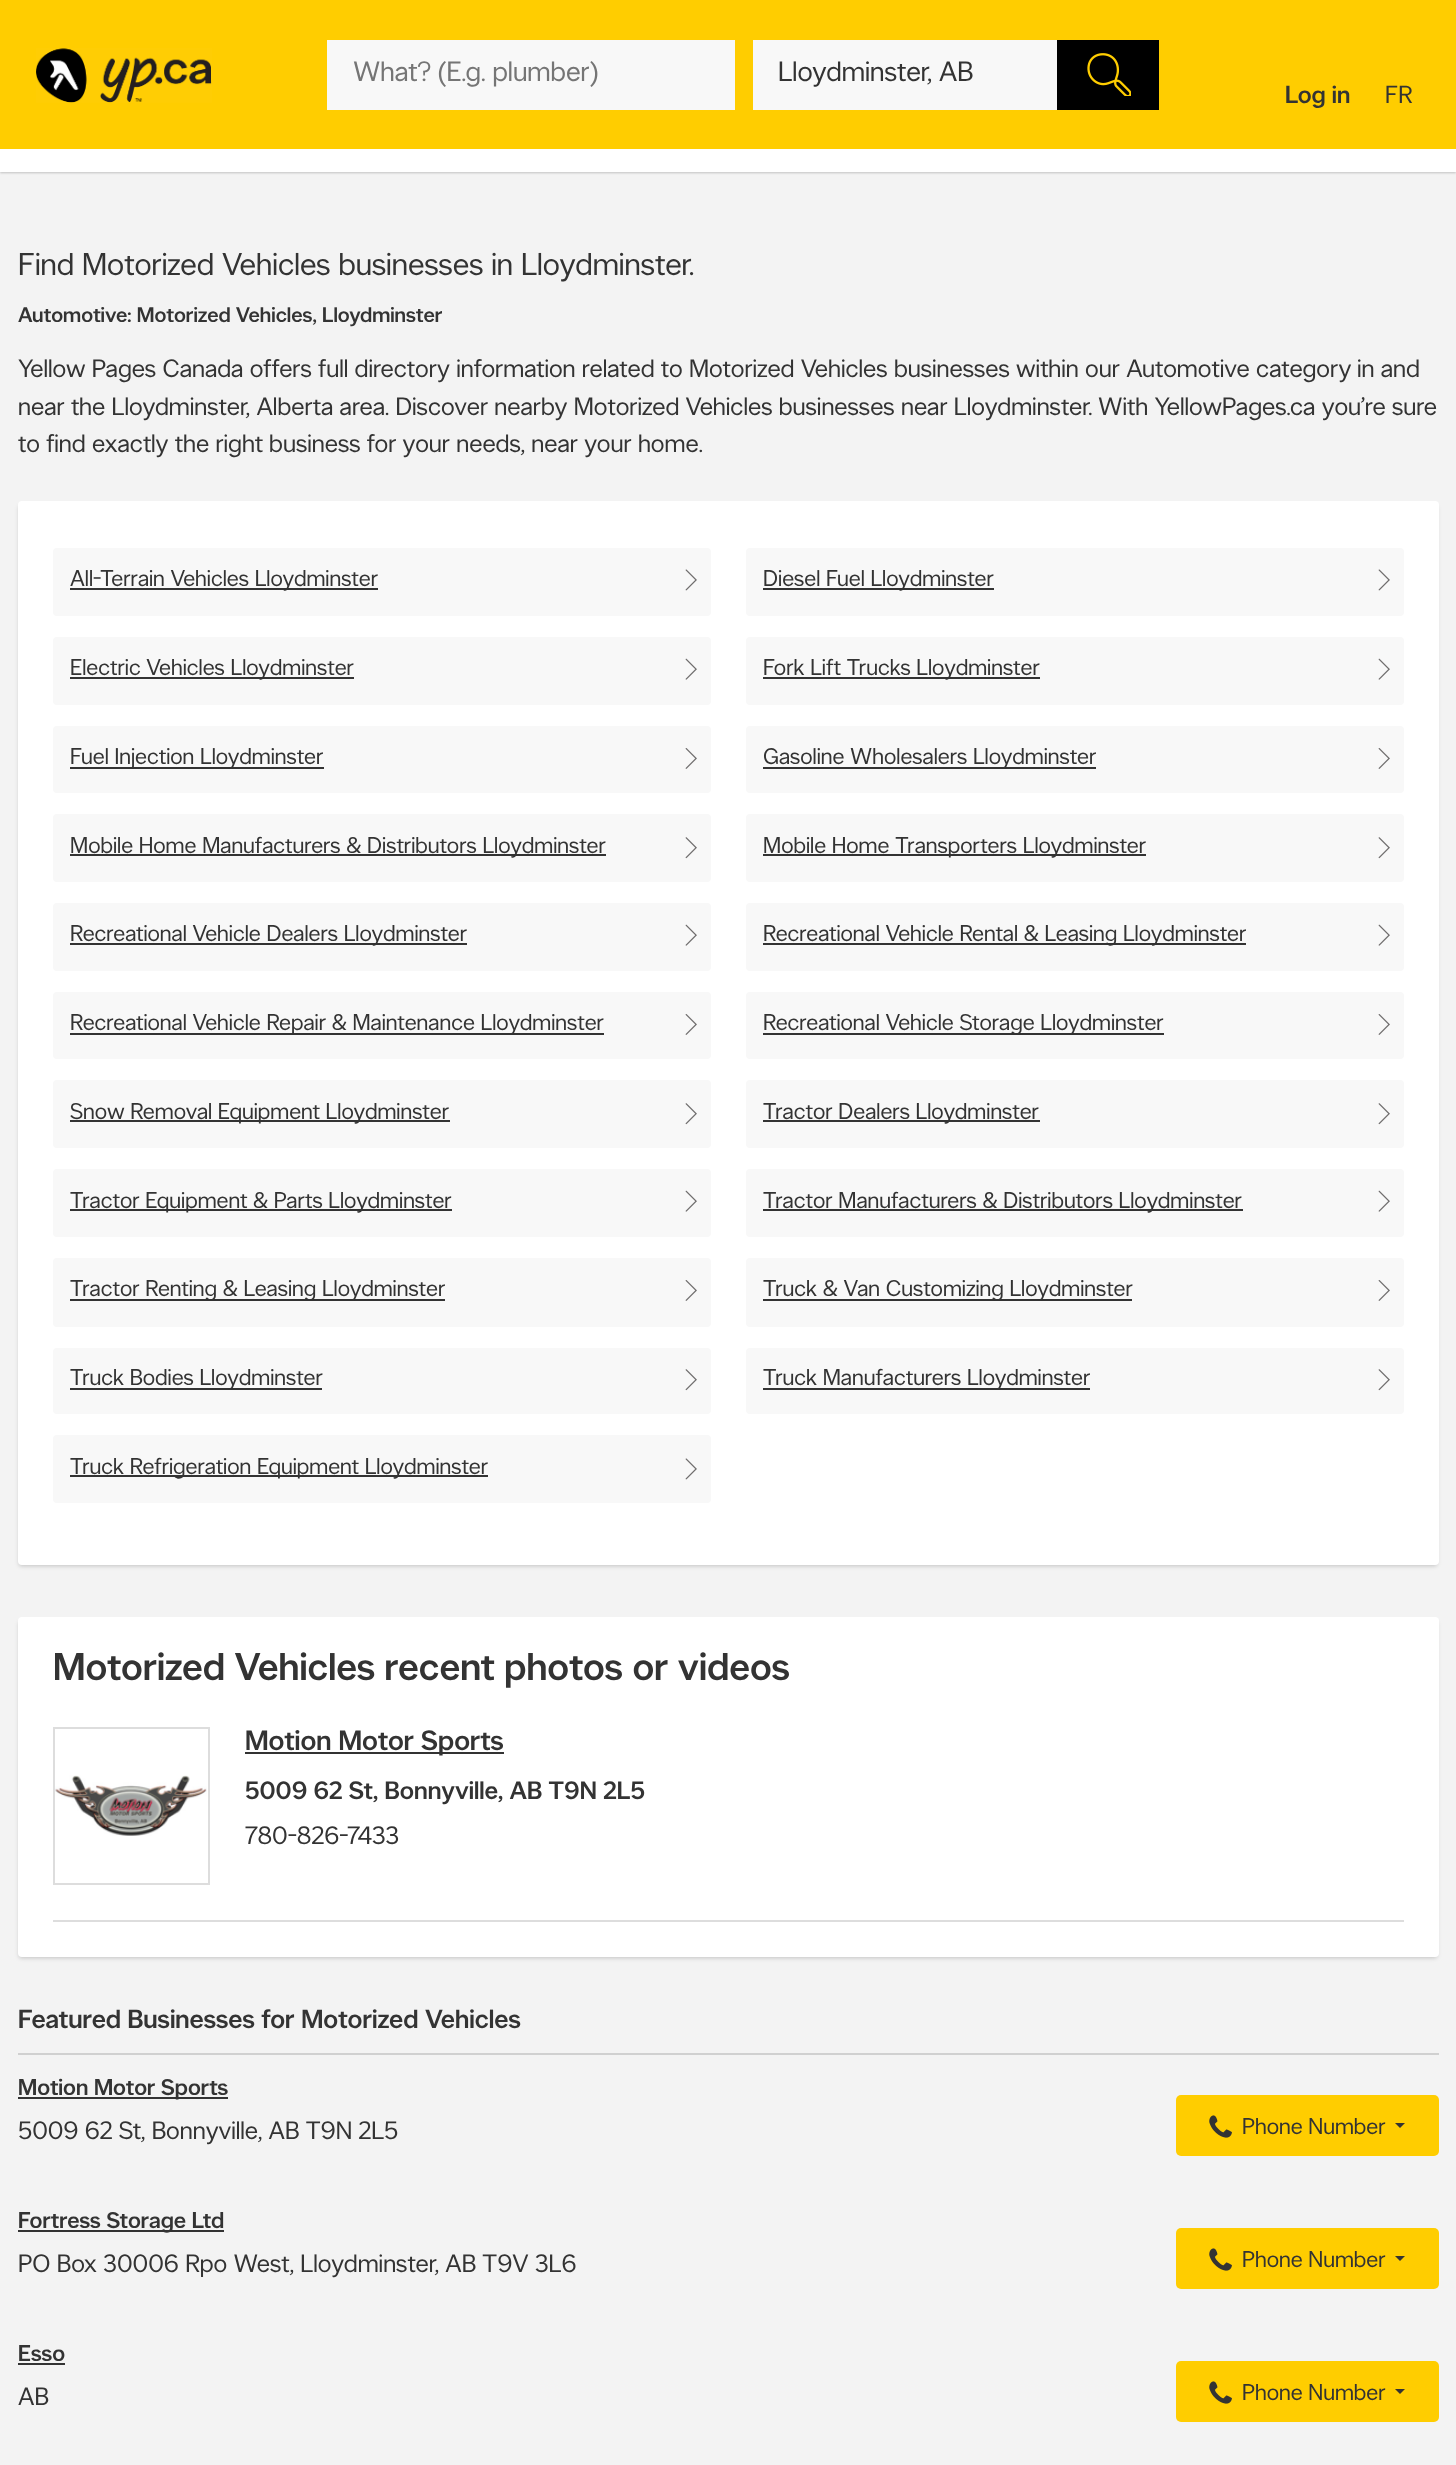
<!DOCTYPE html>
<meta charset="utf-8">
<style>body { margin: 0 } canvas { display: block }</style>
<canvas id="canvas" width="1456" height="2465"></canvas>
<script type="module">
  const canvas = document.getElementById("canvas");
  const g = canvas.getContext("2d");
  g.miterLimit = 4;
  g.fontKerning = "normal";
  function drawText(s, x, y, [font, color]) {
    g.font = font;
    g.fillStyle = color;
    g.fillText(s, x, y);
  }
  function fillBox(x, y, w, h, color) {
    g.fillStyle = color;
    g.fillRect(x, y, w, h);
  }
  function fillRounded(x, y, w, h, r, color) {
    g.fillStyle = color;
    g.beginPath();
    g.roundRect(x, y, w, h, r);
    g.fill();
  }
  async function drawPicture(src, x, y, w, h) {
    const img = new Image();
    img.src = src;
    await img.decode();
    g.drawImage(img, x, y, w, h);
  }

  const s1 = ["28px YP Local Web", "#757575"];
  const s2 = ["28px YP Local Web", "#333333"];
  const s3 = ["500 24.5px YP Local Web", "#333333"];
  const s4 = ["24.5px YP Local Web", "#333333"];
  const s5 = ["31.5px YP Local Web", "#333333"];
  const s6 = ["500 21px YP Local Web", "#333333"];
  const s7 = ["25.2px YP Local Web", "#333333"];
  const s8 = ["22.75px YP Local Web", "#333333"];
  const s9 = ["500 38.5px YP Local Web", "#333333"];
  const s10 = ["500 28px YP Local Web", "#333333"];
  const s11 = ["500 25.2px YP Local Web", "#333333"];
  const s12 = ["500 26.25px YP Local Web", "#333333"];
  const s13 = ["500 22.75px YP Local Web", "#333333"];

  fillBox(0, 0, 1456, 2465, "#F3F3F3");
  g.fillStyle = "rgba(0, 0, 0, 0.2)";
  g.filter = "blur(1px)";
  g.beginPath();
  g.rect(0, 96, 1456, 77);
  g.fill();
  g.filter = "none";
  fillBox(0, 0, 1456, 149, "#FFCD00");
  await drawPicture("pic1.png", 36, 48, 176, 55);
  fillBox(327, 40, 408, 70, "#F8F8F8");
  drawText("What? (E.g. plumber)", 353, 81, s1);
  fillBox(753, 40, 304, 70, "#F8F8F8");
  drawText("Lloydminster, AB", 778, 81, s2);
  fillBox(1057, 40, 102, 70, "#000000");
  await drawPicture("pic2.png", 1087, 53, 44, 43);
  drawText("Log in", 1285, 103, s3);
  drawText("FR", 1385, 103, s4);
  fillBox(0, 149, 1456, 23, "#FFFFFF");
  drawText("Find Motorized Vehicles businesses in Lloydminster.", 18, 275, s5);
  drawText("Automotive: Motorized Vehicles, Lloydminster", 18, 322, s6);
  drawText("Yellow Pages Canada offers full directory information related to Motorized Vehicles businesses within our Automotive category", 18, 377, s7);
  drawText("in and", 1357, 377, s7);
  drawText("near the Lloydminster, Alberta area. Discover nearby Motorized Vehicles businesses near Lloydminster.", 18, 415, s7);
  drawText("With YellowPages.ca you’re sure", 1098, 415, s7);
  drawText("to find exactly the right business for your needs, near your home.", 18, 452, s7);
  g.fillStyle = "rgba(0, 0, 0, 0.2)";
  g.filter = "blur(2px)";
  g.beginPath();
  g.roundRect(19, 506, 1418, 1060, 2);
  g.fill();
  g.filter = "none";
  fillRounded(18, 501, 1421, 1064, 4, "#FFFFFF");
  fillRounded(53, 548, 658, 68, 4, "#F8F8F8");
  fillBox(70, 588, 308, 2, "#333333");
  drawText("All-Terrain Vehicles Lloydminster", 70, 586, s8);
  await drawPicture("pic3.png", 685, 569, 12, 22);
  fillRounded(746, 548, 658, 68, 4, "#F8F8F8");
  fillBox(763, 588, 231, 2, "#333333");
  drawText("Diesel Fuel Lloydminster", 763, 586, s8);
  await drawPicture("pic3.png", 1378, 569, 12, 22);
  fillRounded(53, 637, 658, 68, 4, "#F8F8F8");
  fillBox(70, 677, 284, 2, "#333333");
  drawText("Electric Vehicles Lloydminster", 70, 675, s8);
  await drawPicture("pic4.png", 685, 658, 12, 22);
  fillRounded(746, 637, 658, 68, 4, "#F8F8F8");
  fillBox(763, 677, 277, 2, "#333333");
  drawText("Fork Lift Trucks Lloydminster", 763, 675, s8);
  await drawPicture("pic4.png", 1378, 658, 12, 22);
  fillRounded(53, 726, 658, 67, 4, "#F8F8F8");
  fillBox(70, 767, 254, 2, "#333333");
  drawText("Fuel Injection Lloydminster", 70, 764, s8);
  await drawPicture("pic5.png", 685, 748, 12, 21);
  fillRounded(746, 726, 658, 67, 4, "#F8F8F8");
  fillBox(763, 767, 333, 2, "#333333");
  drawText("Gasoline Wholesalers Lloydminster", 763, 764, s8);
  await drawPicture("pic5.png", 1378, 748, 12, 21);
  fillRounded(53, 814, 658, 68, 4, "#F8F8F8");
  fillBox(70, 854, 536, 2, "#333333");
  drawText("Mobile Home Manufacturers & Distributors Lloydminster", 70, 853, s8);
  await drawPicture("pic6.png", 685, 837, 12, 22);
  fillRounded(746, 814, 658, 68, 4, "#F8F8F8");
  fillBox(763, 854, 383, 2, "#333333");
  drawText("Mobile Home Transporters Lloydminster", 763, 853, s8);
  await drawPicture("pic6.png", 1378, 837, 12, 22);
  fillRounded(53, 903, 658, 68, 4, "#F8F8F8");
  fillBox(70, 943, 397, 2, "#333333");
  drawText("Recreational Vehicle Dealers Lloydminster", 70, 941, s8);
  await drawPicture("pic4.png", 685, 924, 12, 22);
  fillRounded(746, 903, 658, 68, 4, "#F8F8F8");
  fillBox(763, 943, 483, 2, "#333333");
  drawText("Recreational Vehicle Rental & Leasing Lloydminster", 763, 941, s8);
  await drawPicture("pic4.png", 1378, 924, 12, 22);
  fillRounded(53, 992, 658, 67, 4, "#F8F8F8");
  fillBox(70, 1033, 534, 2, "#333333");
  drawText("Recreational Vehicle Repair & Maintenance Lloydminster", 70, 1030, s8);
  await drawPicture("pic5.png", 685, 1014, 12, 21);
  fillRounded(746, 992, 658, 67, 4, "#F8F8F8");
  fillBox(763, 1033, 401, 2, "#333333");
  drawText("Recreational Vehicle Storage Lloydminster", 763, 1030, s8);
  await drawPicture("pic5.png", 1378, 1014, 12, 21);
  fillRounded(53, 1080, 658, 68, 4, "#F8F8F8");
  fillBox(70, 1120, 380, 2, "#333333");
  drawText("Snow Removal Equipment Lloydminster", 70, 1119, s8);
  await drawPicture("pic6.png", 685, 1103, 12, 22);
  fillRounded(746, 1080, 658, 68, 4, "#F8F8F8");
  fillBox(763, 1120, 277, 2, "#333333");
  drawText("Tractor Dealers Lloydminster", 763, 1119, s8);
  await drawPicture("pic6.png", 1378, 1103, 12, 22);
  fillRounded(53, 1169, 658, 68, 4, "#F8F8F8");
  fillBox(70, 1209, 382, 2, "#333333");
  drawText("Tractor Equipment & Parts Lloydminster", 70, 1208, s8);
  await drawPicture("pic4.png", 685, 1190, 12, 22);
  fillRounded(746, 1169, 658, 68, 4, "#F8F8F8");
  fillBox(763, 1209, 480, 2, "#333333");
  drawText("Tractor Manufacturers & Distributors Lloydminster", 763, 1208, s8);
  await drawPicture("pic4.png", 1378, 1190, 12, 22);
  fillRounded(53, 1258, 658, 69, 4, "#F8F8F8");
  fillBox(70, 1299, 375, 2, "#333333");
  drawText("Tractor Renting & Leasing Lloydminster", 70, 1296, s8);
  await drawPicture("pic5.png", 685, 1280, 12, 21);
  fillRounded(746, 1258, 658, 69, 4, "#F8F8F8");
  fillBox(763, 1299, 369, 2, "#333333");
  drawText("Truck & Van Customizing Lloydminster", 763, 1296, s8);
  await drawPicture("pic5.png", 1378, 1280, 12, 21);
  fillRounded(53, 1348, 658, 66, 4, "#F8F8F8");
  fillBox(70, 1388, 252, 2, "#333333");
  drawText("Truck Bodies Lloydminster", 70, 1385, s8);
  await drawPicture("pic6.png", 685, 1369, 12, 22);
  fillRounded(746, 1348, 658, 66, 4, "#F8F8F8");
  fillBox(763, 1388, 327, 2, "#333333");
  drawText("Truck Manufacturers Lloydminster", 763, 1385, s8);
  await drawPicture("pic6.png", 1378, 1369, 12, 22);
  fillRounded(53, 1435, 658, 68, 4, "#F8F8F8");
  fillBox(70, 1475, 418, 2, "#333333");
  drawText("Truck Refrigeration Equipment Lloydminster", 70, 1474, s8);
  await drawPicture("pic3.png", 685, 1458, 12, 22);
  g.fillStyle = "rgba(0, 0, 0, 0.2)";
  g.filter = "blur(2px)";
  g.beginPath();
  g.roundRect(19, 1622, 1418, 336, 2);
  g.fill();
  g.filter = "none";
  fillRounded(18, 1617, 1421, 340, 4, "#FFFFFF");
  drawText("Motorized Vehicles recent photos or videos", 53, 1680, s9);
  fillBox(53, 1920, 1351, 2, "#DDDDDD");
  await drawPicture("pic7.png", 55, 1775, 152, 61);
  g.strokeStyle = "#DDDDDD";
  g.lineWidth = 2;
  g.strokeRect(54, 1728, 155, 156);
  fillBox(245, 1752, 259, 2, "#333333");
  drawText("Motion Motor Sports", 245, 1750, s10);
  drawText("5009 62 St, Bonnyville, AB T9N 2L5", 245, 1799, s11);
  drawText("780-826-7433", 245, 1844, s7);
  fillBox(18, 2053, 1421, 2, "#D0D0D0");
  drawText("Featured Businesses for Motorized Vehicles", 18, 2028, s12);
  fillBox(18, 2097, 210, 2, "#333333");
  drawText("Motion Motor Sports", 18, 2095, s13);
  drawText("5009 62 St, Bonnyville, AB T9N 2L5", 18, 2139, s7);
  fillRounded(1176, 2095, 263, 61, 5, "#FFCD00");
  await drawPicture("pic8.png", 1209, 2115, 23, 23);
  drawText("Phone Number", 1242, 2134, s8);
  g.beginPath();
  g.moveTo(1395, 2123);
  g.lineTo(1405, 2123);
  g.lineTo(1400, 2128);
  g.closePath();
  g.fill();
  fillBox(18, 2230, 206, 2, "#333333");
  drawText("Fortress Storage Ltd", 18, 2228, s13);
  drawText("PO Box 30006 Rpo West, Lloydminster, AB T9V 3L6", 18, 2272, s7);
  fillRounded(1176, 2228, 263, 61, 5, "#FFCD00");
  await drawPicture("pic8.png", 1209, 2248, 23, 23);
  drawText("Phone Number", 1242, 2267, s8);
  g.beginPath();
  g.moveTo(1395, 2256);
  g.lineTo(1405, 2256);
  g.lineTo(1400, 2261);
  g.closePath();
  g.fill();
  drawText("Esso", 18, 2361, s13);
  fillBox(18, 2363, 47, 2, "#333333");
  drawText("AB", 18, 2405, s7);
  fillRounded(1176, 2361, 263, 61, 5, "#FFCD00");
  await drawPicture("pic8.png", 1209, 2381, 23, 23);
  drawText("Phone Number", 1242, 2400, s8);
  g.beginPath();
  g.moveTo(1395, 2389);
  g.lineTo(1405, 2389);
  g.lineTo(1400, 2394);
  g.closePath();
  g.fill();
</script>
